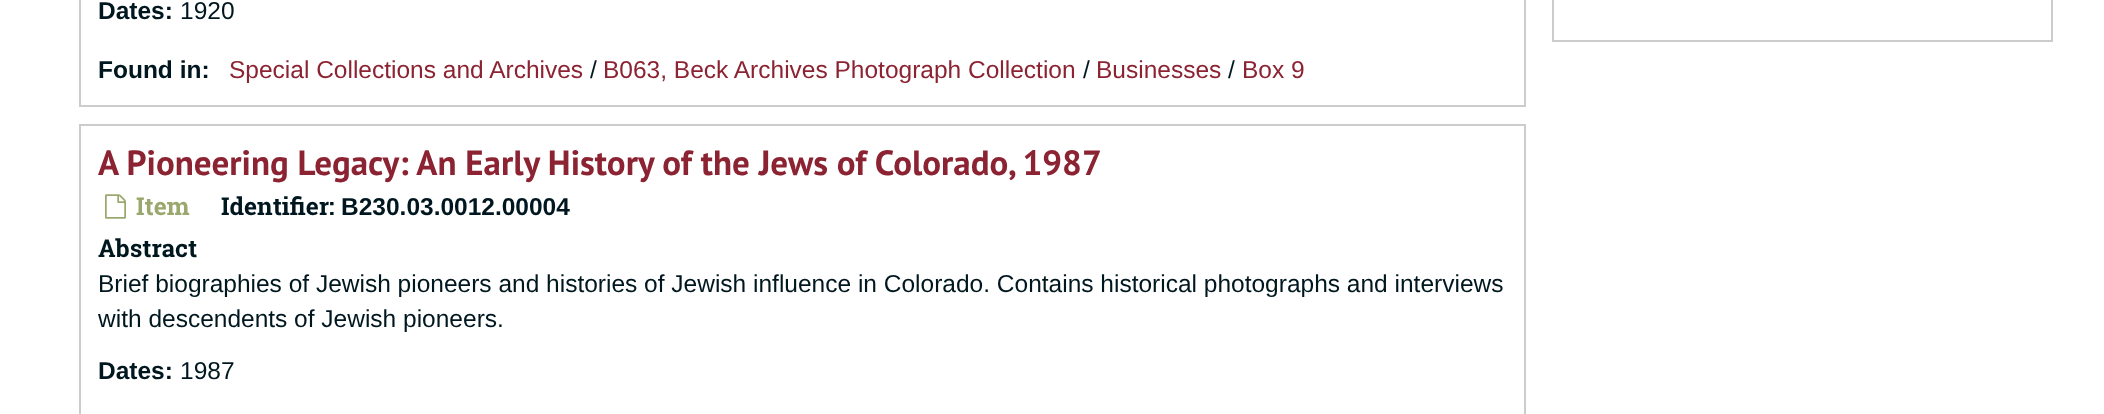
<!DOCTYPE html>
<meta charset="utf-8">
<style>body { margin: 0 } canvas { display: block }</style>
<canvas id="canvas" width="2104" height="414"></canvas>
<script type="module">
  const canvas = document.getElementById("canvas");
  const g = canvas.getContext("2d");
  g.miterLimit = 4;
  g.fontKerning = "normal";
  function drawText(s, x, y, [font, color]) {
    g.font = font;
    g.fillStyle = color;
    g.fillText(s, x, y);
  }
  function fillBox(x, y, w, h, color) {
    g.fillStyle = color;
    g.fillRect(x, y, w, h);
  }
  async function drawPicture(src, x, y, w, h) {
    const img = new Image();
    img.src = src;
    await img.decode();
    g.drawImage(img, x, y, w, h);
  }

  const s1 = ["bold 24.5px Liberation Sans", "#00171F"];
  const s2 = ["24.5px Liberation Sans", "#00171F"];
  const s3 = ["24.5px Liberation Sans", "#8B2332"];
  const s4 = ["bold 35px PT Sans", "#8B2332"];
  const s5 = ["bold 24.5px Roboto Slab", "#9AA86E"];
  const s6 = ["bold 24.5px Roboto Slab", "#00171F"];

  fillBox(0, 0, 2104, 414, "#FFFFFF");
  g.strokeStyle = "#CCCCCC";
  g.lineWidth = 2;
  g.strokeRect(80, -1, 1445, 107);
  drawText("Dates:", 98, 19, s1);
  drawText("1920", 180, 19, s2);
  drawText("Found in:", 98, 78, s1);
  drawText("Special Collections and Archives", 229, 78, s3);
  drawText("/", 590, 78, s2);
  drawText("B063, Beck Archives Photograph Collection", 603, 78, s3);
  drawText("/", 1083, 78, s2);
  drawText("Businesses", 1096, 78, s3);
  drawText("/", 1228, 78, s2);
  drawText("Box 9", 1242, 78, s3);
  g.strokeRect(80, 125, 1445, 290);
  drawText("A Pioneering Legacy: An Early History of the Jews of Colorado, 1987", 98, 175, s4);
  await drawPicture("pic1.png", 105, 194, 21, 25);
  drawText("Item", 136, 215, s5);
  drawText("Identifier:", 221, 215, s6);
  drawText("B230.03.0012.00004", 341, 215, s1);
  drawText("Abstract", 98, 257, s6);
  drawText("Brief biographies of Jewish pioneers and histories of Jewish influence in Colorado. Contains historical photographs and interviews", 98, 292, s2);
  drawText("with descendents of Jewish pioneers.", 98, 327, s2);
  drawText("Dates:", 98, 379, s1);
  drawText("1987", 180, 379, s2);
  g.strokeRect(1553, -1, 499, 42);
</script>
